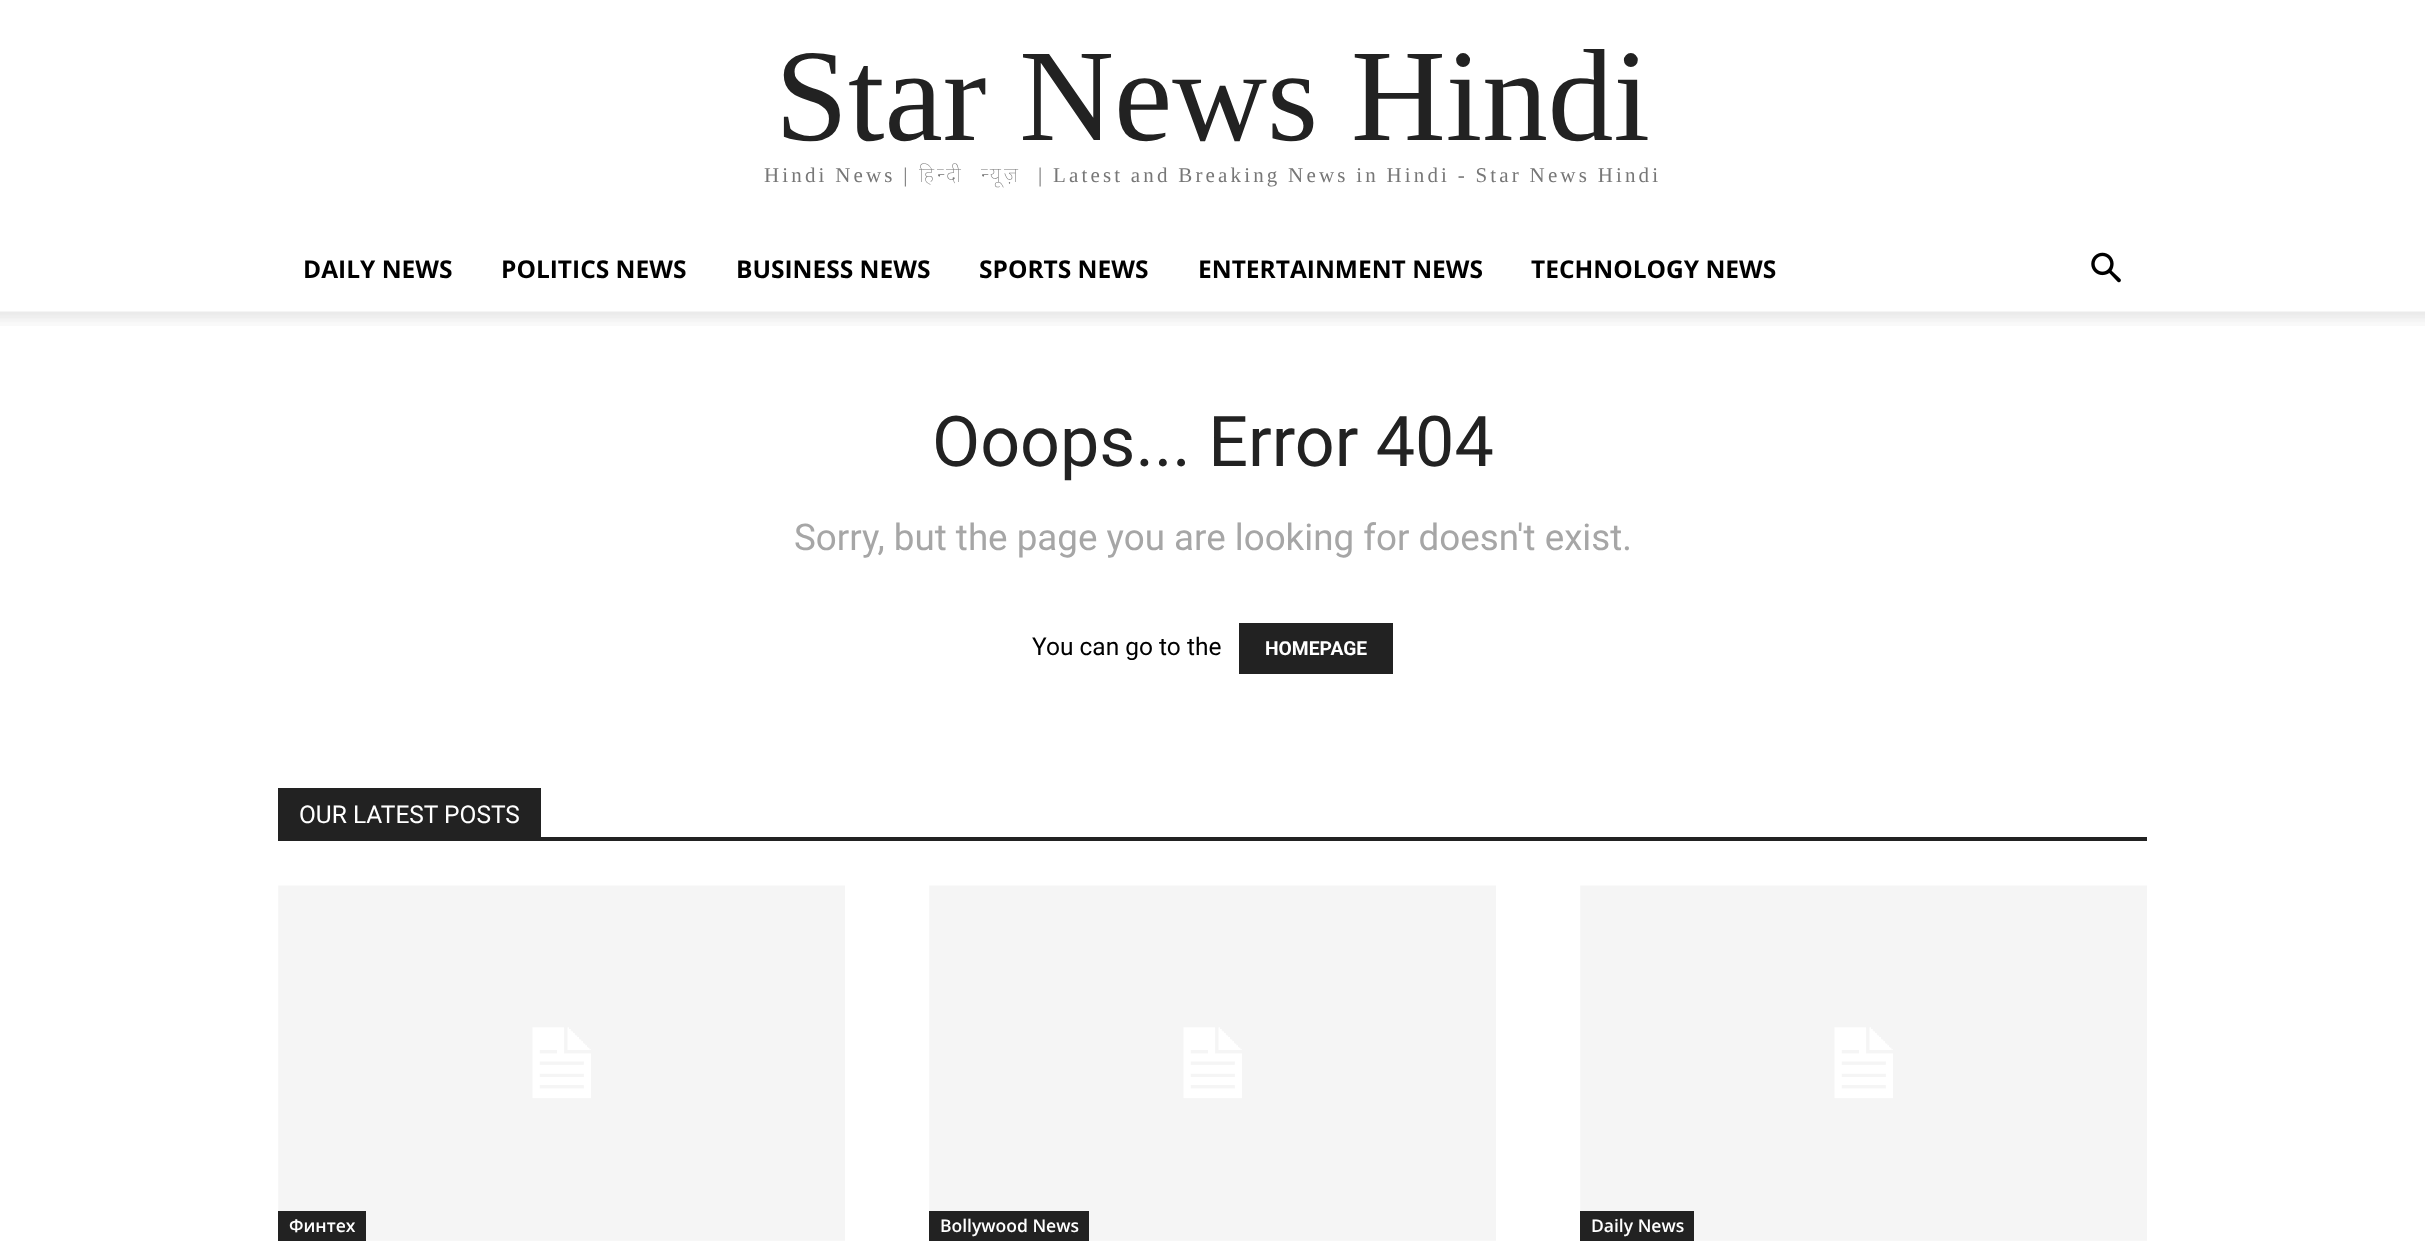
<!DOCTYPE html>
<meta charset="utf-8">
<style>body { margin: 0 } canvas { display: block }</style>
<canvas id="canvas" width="2425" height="1251"></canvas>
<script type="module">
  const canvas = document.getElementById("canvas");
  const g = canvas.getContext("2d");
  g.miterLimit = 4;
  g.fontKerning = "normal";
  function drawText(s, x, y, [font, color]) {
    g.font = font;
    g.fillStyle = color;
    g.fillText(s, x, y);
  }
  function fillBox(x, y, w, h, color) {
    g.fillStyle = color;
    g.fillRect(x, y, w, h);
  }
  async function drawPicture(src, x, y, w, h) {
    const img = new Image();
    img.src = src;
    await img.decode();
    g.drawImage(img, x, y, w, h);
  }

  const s1 = ["131.25px Liberation Serif", "#222222"];
  const s2 = ["21px Liberation Serif", "#777777"];
  const s3 = ["100 21px Noto Sans", "#777777"];
  const s4 = ["bold 24.5px Open Sans", "#000000"];
  const s5 = ["70px Roboto", "#222222"];
  const s6 = ["36.75px Roboto", "#A6A6A6"];
  const s7 = ["24.5px Roboto", "#000000"];
  const s8 = ["bold 19.25px Roboto", "#FFFFFF"];
  const s9 = ["24.5px Roboto", "#FFFFFF"];
  const s10 = ["600 17.5px Open Sans", "#FFFFFF"];

  fillBox(0, 0, 2425, 1251, "#FFFFFF");
  drawText("Star News Hindi", 775, 140, s1);
  g.letterSpacing = "3.15px";
  g.wordSpacing = "-0.75px";
  drawText("Hindi News |", 764, 182, s2);
  g.wordSpacing = "0px";
  drawText("हिन्दी", 919, 182, s3);
  drawText("न्यूज़", 981, 182, s3);
  g.wordSpacing = "-0.75px";
  drawText("| Latest and Breaking News in Hindi - Star News Hindi", 1038, 182, s2);
  g.letterSpacing = "0px";
  g.wordSpacing = "0px";
  drawText("DAILY NEWS", 303, 278, s4);
  drawText("POLITICS NEWS", 501, 278, s4);
  drawText("BUSINESS NEWS", 736, 278, s4);
  drawText("SPORTS NEWS", 979, 278, s4);
  drawText("ENTERTAINMENT NEWS", 1198, 278, s4);
  drawText("TECHNOLOGY NEWS", 1531, 278, s4);
  await drawPicture("pic1.png", 2091, 252, 30, 31);
  await drawPicture("pic2.png", 0, 311, 2425, 15);
  drawText("Ooops... Error 404", 932, 466, s5);
  drawText("Sorry, but the page you are looking for doesn't exist.", 794, 550, s6);
  drawText("You can go to the", 1032, 655, s7);
  fillBox(1239, 623, 154, 51, "#222222");
  drawText("HOMEPAGE", 1265, 655, s8);
  fillBox(278, 837, 1869, 4, "#222222");
  fillBox(278, 788, 263, 49, "#222222");
  drawText("OUR LATEST POSTS", 299, 823, s9);
  await drawPicture("pic3.png", 278, 885, 567, 356);
  fillBox(278, 1211, 88, 30, "#222222");
  drawText("Финтех", 289, 1232, s10);
  await drawPicture("pic3.png", 929, 885, 567, 356);
  fillBox(929, 1211, 160, 30, "#222222");
  drawText("Bollywood News", 940, 1232, s10);
  await drawPicture("pic3.png", 1580, 885, 567, 356);
  fillBox(1580, 1211, 114, 30, "#222222");
  drawText("Daily News", 1591, 1232, s10);
</script>
